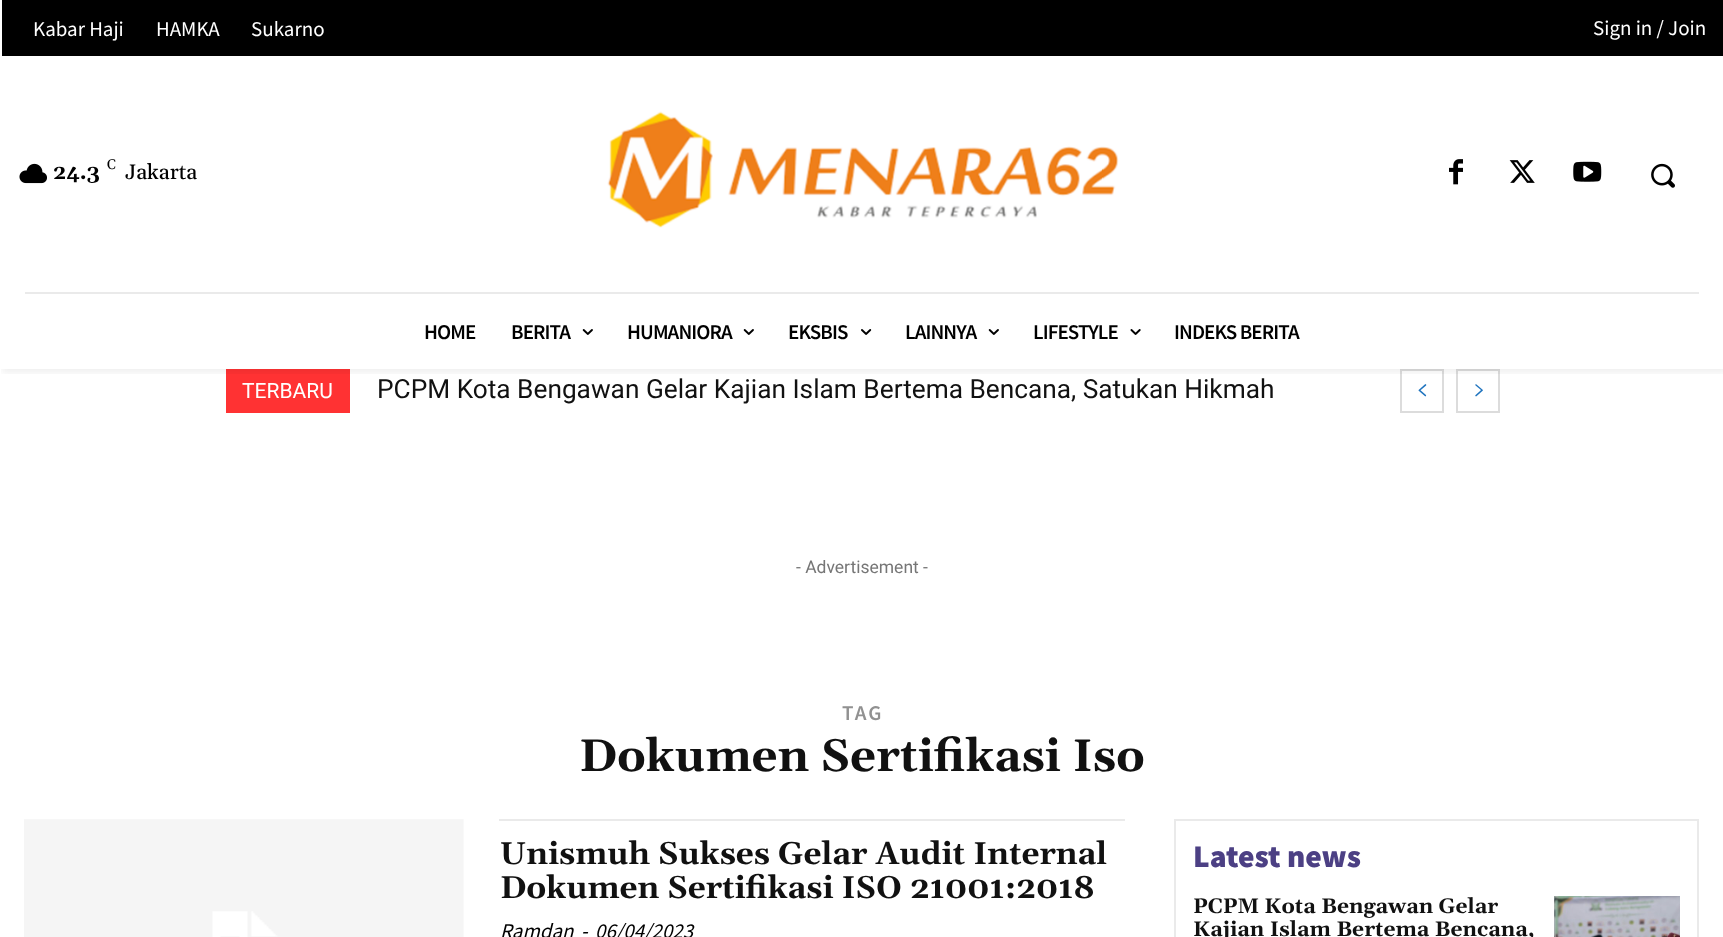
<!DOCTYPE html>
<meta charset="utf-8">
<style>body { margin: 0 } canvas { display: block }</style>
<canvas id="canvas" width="1723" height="937"></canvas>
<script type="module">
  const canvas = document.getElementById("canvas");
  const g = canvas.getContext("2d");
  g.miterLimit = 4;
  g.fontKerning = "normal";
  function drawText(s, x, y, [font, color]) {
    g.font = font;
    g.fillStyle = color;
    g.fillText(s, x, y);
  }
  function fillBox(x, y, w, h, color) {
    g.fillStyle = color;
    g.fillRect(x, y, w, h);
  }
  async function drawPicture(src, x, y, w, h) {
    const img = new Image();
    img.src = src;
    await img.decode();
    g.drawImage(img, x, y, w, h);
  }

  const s1 = ["21px Source Sans Pro", "#FFFFFF"];
  const s2 = ["14px Gelasio", "#000000"];
  const s3 = ["bold 21px Gelasio", "#000000"];
  const s4 = ["500 21px Gelasio", "#000000"];
  const s5 = ["600 21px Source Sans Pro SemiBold", "#000000"];
  const s6 = ["21px Roboto", "#FFFFFF"];
  const s7 = ["26.25px Roboto", "#111111"];
  const s8 = ["17.5px Roboto", "#767676"];
  const s9 = ["600 21px Source Sans Pro SemiBold", "#919191"];
  const s10 = ["bold 45.5px Gelasio", "#111111"];
  const s11 = ["bold 31.5px Gelasio", "#111111"];
  const s12 = ["italic 21px Source Sans Pro", "#000000"];
  const s13 = ["900 31.5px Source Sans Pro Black", "#4C4084"];
  const s14 = ["bold 21px Gelasio", "#111111"];

  fillBox(0, 0, 1723, 937, "#FFFFFF");
  fillBox(2, 0, 1721, 56, "#000000");
  drawText("Kabar Haji", 33, 36, s1);
  drawText("HAMKA", 156, 36, s1);
  drawText("Sukarno", 251, 36, s1);
  drawText("Sign in / Join", 1593, 35, s1);
  await drawPicture("pic1.png", 19, 163, 28, 21);
  drawText("C", 107, 169, s2);
  drawText("24.3", 53, 179, s3);
  drawText("Jakarta", 125, 179, s4);
  await drawPicture("pic2.png", 607, 111, 512, 117);
  await drawPicture("pic3.png", 1449, 159, 14, 26);
  await drawPicture("pic4.png", 1509, 160, 26, 23);
  await drawPicture("pic5.png", 1573, 161, 29, 21);
  await drawPicture("pic6.png", 1651, 163, 24, 25);
  fillBox(25, 292, 1674, 2, "#EAEAEA");
  fillBox(226, 369, 124, 44, "#FF3233");
  g.strokeStyle = "#DCDCDC";
  g.lineWidth = 2;
  g.strokeRect(1401, 370, 42, 42);
  await drawPicture("pic10.png", 1418, 384, 9, 13);
  g.strokeRect(1457, 370, 42, 42);
  await drawPicture("pic11.png", 1475, 384, 8, 13);
  g.save();
  g.beginPath();
  g.rect(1, 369, 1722, 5);
  g.clip();
  g.fillStyle = "rgba(0, 0, 0, 0.06)";
  g.filter = "blur(3.5px)";
  g.beginPath();
  g.rect(2, 243, 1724, 130);
  g.fill();
  g.filter = "none";
  g.restore();
  g.letterSpacing = "-0.9px";
  drawText("HOME", 424, 339, s5);
  drawText("BERITA", 511, 339, s5);
  await drawPicture("pic7.png", 582, 329, 11, 6);
  drawText("HUMANIORA", 627, 339, s5);
  await drawPicture("pic7.png", 743, 329, 11, 6);
  drawText("EKSBIS", 788, 339, s5);
  await drawPicture("pic8.png", 861, 329, 11, 6);
  drawText("LAINNYA", 905, 339, s5);
  await drawPicture("pic7.png", 988, 329, 11, 6);
  drawText("LIFESTYLE", 1033, 339, s5);
  await drawPicture("pic9.png", 1130, 329, 11, 6);
  drawText("INDEKS BERITA", 1174, 339, s5);
  g.letterSpacing = "0px";
  drawText("TERBARU", 242, 398, s6);
  drawText("PCPM Kota Bengawan Gelar Kajian Islam Bertema Bencana, Satukan Hikmah", 377, 398, s7);
  drawText("- Advertisement -", 796, 573, s8);
  g.letterSpacing = "2px";
  drawText("TAG", 842, 720, s9);
  g.letterSpacing = "0px";
  drawText("Dokumen Sertifikasi Iso", 579, 771, s10);
  await drawPicture("pic12.png", 24, 819, 440, 118);
  fillBox(499, 819, 626, 2, "#EAEAEA");
  drawText("Unismuh Sukses Gelar Audit Internal", 500, 864, s11);
  drawText("Dokumen Sertifikasi ISO 21001:2018", 500, 898, s11);
  drawText("Ramdan", 500, 938, s12);
  drawText("-", 581, 938, s12);
  drawText("06/04/2023", 595, 938, s12);
  g.strokeStyle = "#EAEAEA";
  g.strokeRect(1175, 820, 523, 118);
  drawText("Latest news", 1193, 867, s13);
  drawText("PCPM Kota Bengawan Gelar", 1193, 913, s14);
  drawText("Kajian Islam Bertema Bencana,", 1193, 936, s14);
  await drawPicture("pic13.png", 1554, 896, 126, 41);
</script>
